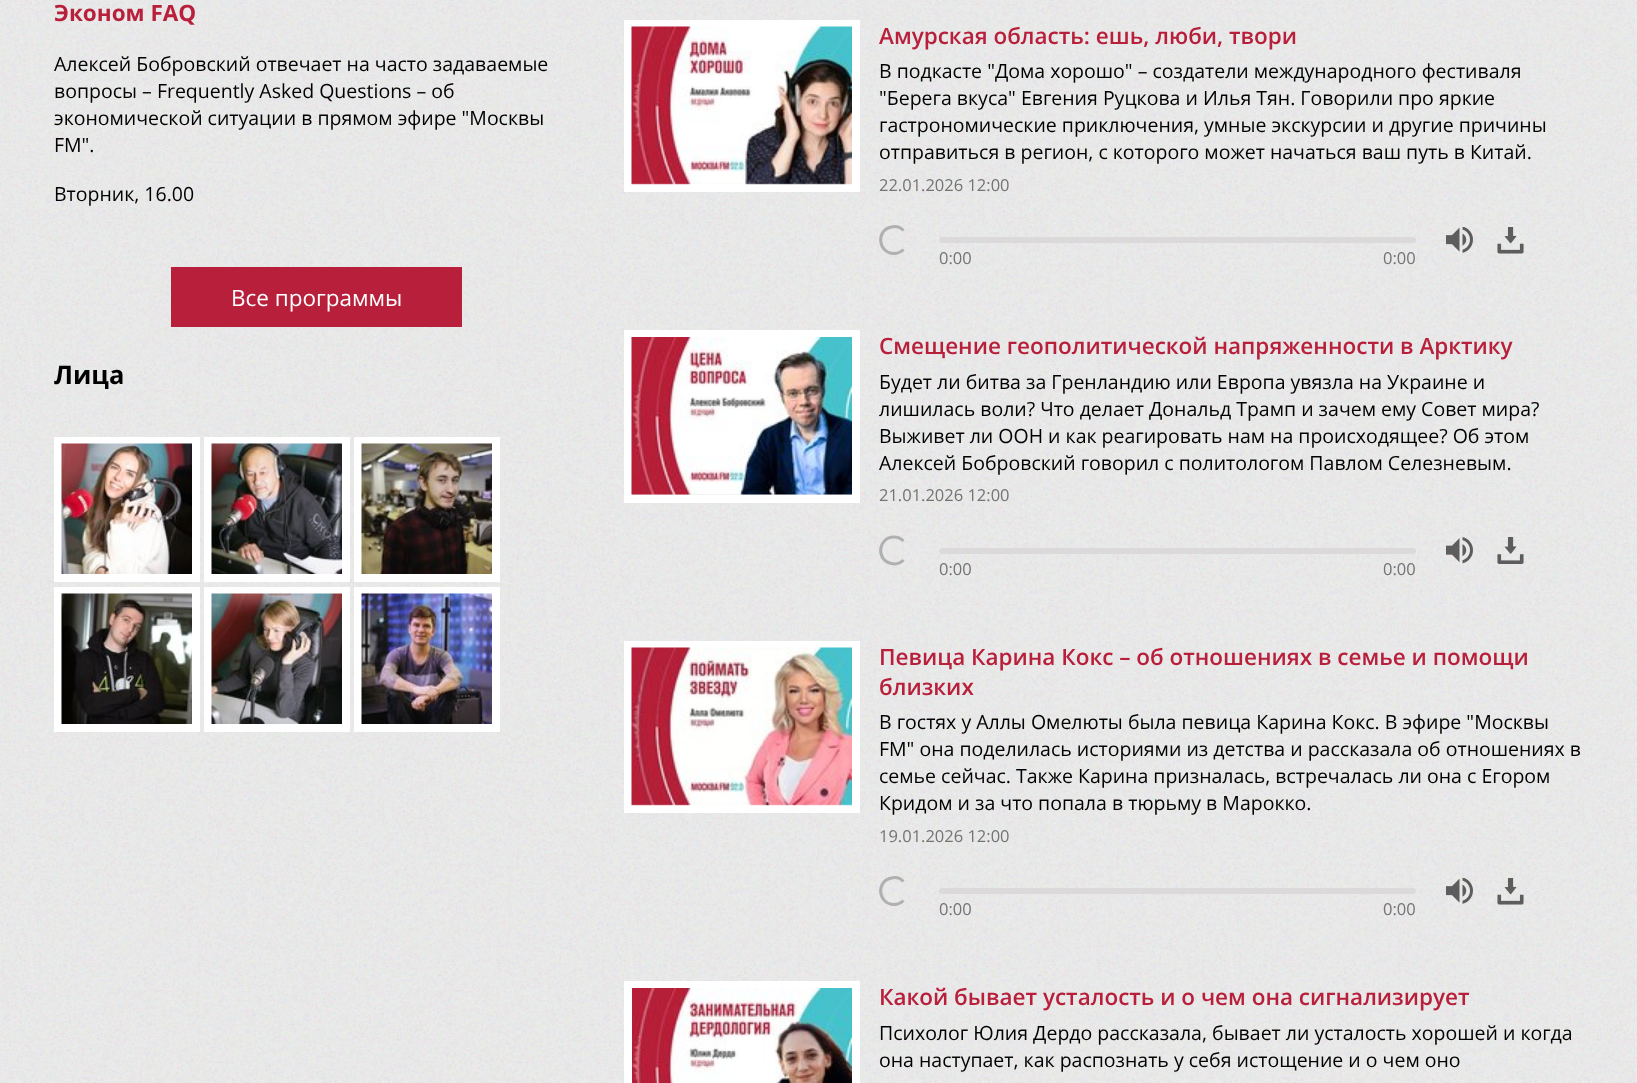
<!DOCTYPE html>
<meta charset="utf-8">
<style>body { margin: 0 } canvas { display: block }</style>
<canvas id="canvas" width="1637" height="1083"></canvas>
<script type="module">
  const canvas = document.getElementById("canvas");
  const g = canvas.getContext("2d");
  g.miterLimit = 4;
  g.fontKerning = "normal";
  function drawText(s, x, y, [font, color]) {
    g.font = font;
    g.fillStyle = color;
    g.fillText(s, x, y);
  }
  function fillBox(x, y, w, h, color) {
    g.fillStyle = color;
    g.fillRect(x, y, w, h);
  }
  function fillRounded(x, y, w, h, r, color) {
    g.fillStyle = color;
    g.beginPath();
    g.roundRect(x, y, w, h, r);
    g.fill();
  }
  async function drawPicture(src, x, y, w, h) {
    const img = new Image();
    img.src = src;
    await img.decode();
    g.drawImage(img, x, y, w, h);
  }

  const s1 = ["bold 22.5px Open Sans", "#B81F3B"];
  const s2 = ["19.5px Open Sans", "#000000"];
  const s3 = ["22.5px Open Sans", "#FFFFFF"];
  const s4 = ["bold 25.5px Open Sans", "#000000"];
  const s5 = ["600 22.5px Open Sans", "#B81F3B"];
  const s6 = ["16.5px Open Sans", "#747474"];

  fillBox(0, 0, 1637, 1083, "#FFFFFF");
  await drawPicture("pic1.png", 0, 0, 1637, 1083);
  drawText("Эконом FAQ", 54, 21, s1);
  drawText("Алексей Бобровский отвечает на часто задаваемые", 54, 71, s2);
  drawText("вопросы – Frequently Asked Questions – об", 54, 98, s2);
  drawText("экономической ситуации в прямом эфире \"Москвы", 54, 125, s2);
  drawText("FM\".", 54, 152, s2);
  drawText("Вторник, 16.00", 54, 201, s2);
  fillBox(171, 267, 291, 60, "#B81F3B");
  drawText("Все программы", 231, 306, s3);
  drawText("Лица", 54, 384, s4);
  g.strokeStyle = "#FFFFFF";
  g.lineWidth = 8;
  g.strokeRect(58, 441, 138, 137);
  await drawPicture("pic2.png", 61, 443, 131, 131);
  g.strokeRect(208, 441, 138, 137);
  await drawPicture("pic3.png", 211, 443, 131, 131);
  g.strokeRect(358, 441, 138, 137);
  await drawPicture("pic4.png", 361, 443, 131, 131);
  g.strokeRect(58, 591, 138, 137);
  await drawPicture("pic5.png", 61, 593, 131, 131);
  g.strokeRect(208, 591, 138, 137);
  await drawPicture("pic6.png", 211, 593, 131, 131);
  g.strokeRect(358, 591, 138, 137);
  await drawPicture("pic7.png", 361, 593, 131, 131);
  g.strokeRect(628, 24, 228, 164);
  await drawPicture("pic8.png", 631, 26, 221, 159);
  drawText("Амурская область: ешь, люби, твори", 879, 44, s5);
  drawText("В подкасте \"Дома хорошо\" – создатели международного фестиваля", 879, 78, s2);
  drawText("\"Берега вкуса\" Евгения Руцкова и Илья Тян. Говорили про яркие", 879, 105, s2);
  drawText("гастрономические приключения, умные экскурсии и другие причины", 879, 132, s2);
  drawText("отправиться в регион, с которого может начаться ваш путь в Китай.", 879, 159, s2);
  drawText("22.01.2026 12:00", 879, 191, s6);
  g.beginPath();
  g.moveTo(903.5, 249.5);
  g.bezierCurveTo(901, 252, 897.5, 253.5, 894, 253.5);
  g.bezierCurveTo(878, 253.5, 875.5, 230, 891.5, 227);
  g.bezierCurveTo(895.5, 226, 900.5, 227.5, 903.5, 230.5);
  g.strokeStyle = "#B0B0B0";
  g.lineWidth = 3;
  g.stroke();
  await drawPicture("pic9.png", 1446, 227, 27, 26);
  await drawPicture("pic10.png", 1497, 227, 27, 27);
  fillRounded(939, 237, 477, 6, 3, "#DBD9D9");
  drawText("0:00", 939, 264, s6);
  drawText("0:00", 1383, 264, s6);
  g.strokeStyle = "#FFFFFF";
  g.lineWidth = 8;
  g.strokeRect(628, 334, 228, 165);
  await drawPicture("pic11.png", 631, 337, 221, 158);
  drawText("Смещение геополитической напряженности в Арктику", 879, 354, s5);
  drawText("Будет ли битва за Гренландию или Европа увязла на Украине и", 879, 389, s2);
  drawText("лишилась воли? Что делает Дональд Трамп и зачем ему Совет мира?", 879, 416, s2);
  drawText("Выживет ли ООН и как реагировать нам на происходящее? Об этом", 879, 443, s2);
  drawText("Алексей Бобровский говорил с политологом Павлом Селезневым.", 879, 470, s2);
  drawText("21.01.2026 12:00", 879, 501, s6);
  g.beginPath();
  g.moveTo(903.5, 560);
  g.bezierCurveTo(900.5, 563, 895.5, 564.5, 891.5, 563.5);
  g.bezierCurveTo(875.5, 560.5, 878, 537, 894, 537);
  g.bezierCurveTo(897.5, 537, 901, 538.5, 903.5, 541);
  g.strokeStyle = "#B0B0B0";
  g.lineWidth = 3;
  g.stroke();
  await drawPicture("pic12.png", 1446, 537, 27, 27);
  await drawPicture("pic13.png", 1497, 537, 27, 27);
  fillRounded(939, 548, 477, 6, 3, "#DBD9D9");
  drawText("0:00", 939, 575, s6);
  drawText("0:00", 1383, 575, s6);
  g.strokeStyle = "#FFFFFF";
  g.lineWidth = 8;
  g.strokeRect(628, 645, 228, 164);
  await drawPicture("pic14.png", 631, 647, 221, 159);
  drawText("Певица Карина Кокс – об отношениях в семье и помощи", 879, 665, s5);
  drawText("близких", 879, 695, s5);
  drawText("В гостях у Аллы Омелюты была певица Карина Кокс. В эфире \"Москвы", 879, 729, s2);
  drawText("FM\" она поделилась историями из детства и рассказала об отношениях в", 879, 756, s2);
  drawText("семье сейчас. Также Карина призналась, встречалась ли она с Егором", 879, 783, s2);
  drawText("Кридом и за что попала в тюрьму в Марокко.", 879, 810, s2);
  drawText("19.01.2026 12:00", 879, 842, s6);
  g.beginPath();
  g.moveTo(903.5, 900.5);
  g.bezierCurveTo(901, 903, 897.5, 904.5, 894, 904.5);
  g.bezierCurveTo(878, 904.5, 875.5, 881, 891.5, 878);
  g.bezierCurveTo(895.5, 877, 900.5, 878.5, 903.5, 881.5);
  g.strokeStyle = "#B0B0B0";
  g.lineWidth = 3;
  g.stroke();
  await drawPicture("pic15.png", 1446, 878, 27, 26);
  await drawPicture("pic16.png", 1497, 878, 27, 27);
  fillRounded(939, 888, 477, 6, 3, "#DBD9D9");
  drawText("0:00", 939, 915, s6);
  drawText("0:00", 1383, 915, s6);
  g.strokeStyle = "#FFFFFF";
  g.lineWidth = 8;
  g.strokeRect(628, 985, 228, 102);
  await drawPicture("pic17.png", 632, 988, 220, 95);
  drawText("Какой бывает усталость и о чем она сигнализирует", 879, 1005, s5);
  drawText("Психолог Юлия Дердо рассказала, бывает ли усталость хорошей и когда", 879, 1040, s2);
  drawText("она наступает, как распознать у себя истощение и о чем оно", 879, 1067, s2);
</script>
